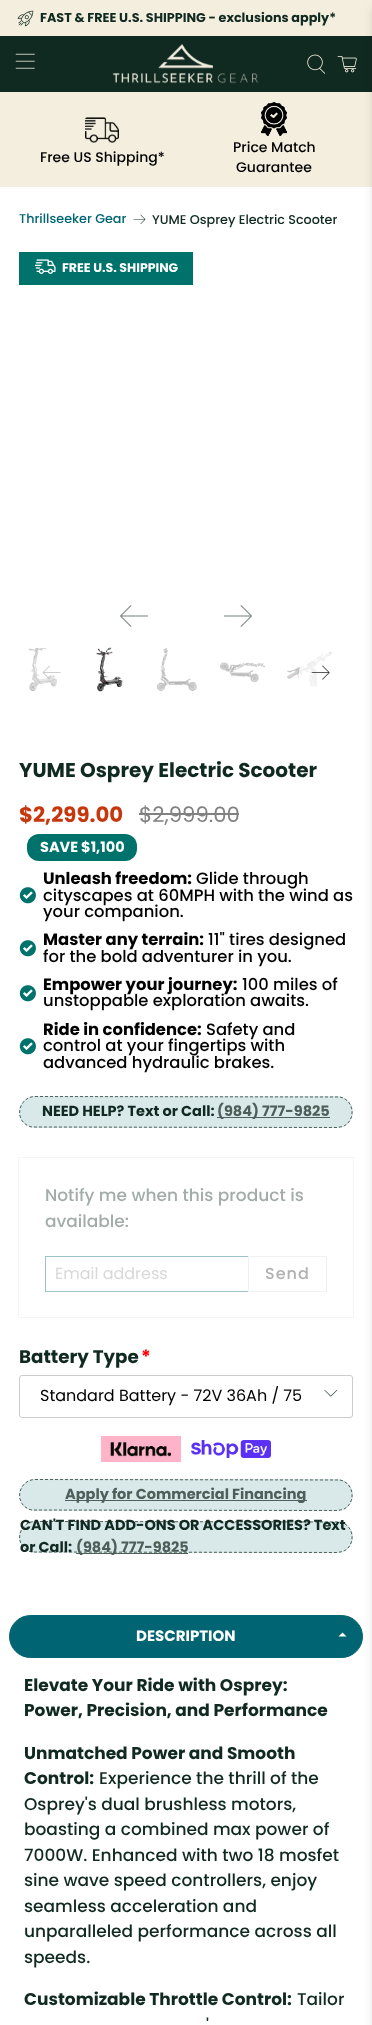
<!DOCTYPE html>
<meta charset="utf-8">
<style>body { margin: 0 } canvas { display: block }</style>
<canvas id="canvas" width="372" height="2025"></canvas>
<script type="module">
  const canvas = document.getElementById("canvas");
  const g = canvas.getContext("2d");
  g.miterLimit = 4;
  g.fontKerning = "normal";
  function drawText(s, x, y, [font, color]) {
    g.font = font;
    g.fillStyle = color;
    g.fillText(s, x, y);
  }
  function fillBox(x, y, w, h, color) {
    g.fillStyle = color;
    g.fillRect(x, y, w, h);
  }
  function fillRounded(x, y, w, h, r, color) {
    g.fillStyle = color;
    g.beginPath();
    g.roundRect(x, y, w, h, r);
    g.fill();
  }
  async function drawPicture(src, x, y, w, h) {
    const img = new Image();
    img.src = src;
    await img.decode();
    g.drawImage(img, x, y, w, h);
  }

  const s1 = ["bold 12.75px Poppins", "#102921"];
  const s2 = ["500 14px Poppins", "#000000"];
  const s3 = ["500 12.75px Poppins", "#006572"];
  const s4 = ["500 12.75px Poppins", "#102921"];
  const s5 = ["bold 12.5px Poppins", "#FFFFFF"];
  const s6 = ["bold 20px Poppins", "#102921"];
  const s7 = ["bold 21.25px Poppins", "#C7370E"];
  const s8 = ["21.25px Poppins", "#818181"];
  const s9 = ["bold 14.5px Poppins", "#FFFFFF"];
  const s10 = ["bold 16.4px Poppins", "#000000"];
  const s11 = ["500 16.4px Poppins", "#000000"];
  const s12 = ["bold 14.5px Poppins", "#102921"];
  const s13 = ["bold 14.5px Poppins", "#4E5F59"];
  const s14 = ["500 17px Poppins", "#A2ACA9"];
  const s15 = ["16px Poppins", "#D8D8D8"];
  const s16 = ["500 16px Poppins", "#B1B1B1"];
  const s17 = ["bold 18.25px Poppins", "#102921"];
  const s18 = ["bold 18.25px Poppins", "#FF0000"];
  const s19 = ["16px Poppins", "#000000"];
  const s20 = ["bold 15px Poppins", "#FFFFFF"];
  const s21 = ["bold 17px Poppins", "#102921"];
  const s22 = ["500 17px Poppins", "#102921"];

  fillBox(0, 0, 372, 2025, "#FFFFFF");
  fillBox(0, 36, 372, 56, "#102921");
  await drawPicture("pic1.png", 15, 53, 20, 16);
  await drawPicture("pic2.png", 112, 44, 146, 40);
  await drawPicture("pic3.png", 307, 54, 19, 20);
  await drawPicture("pic4.png", 337, 56, 20, 17);
  fillBox(0, 0, 372, 36, "#F3EEDD");
  fillBox(0, 92, 372, 95, "#F3EEDD");
  g.fillStyle = "#016472";
  g.beginPath();
  g.roundRect(9.5, 1615.5, 353, 42, 21);
  g.fill();
  g.strokeStyle = "#016472";
  g.stroke();
  g.fillStyle = "rgba(10, 10, 10, 0.1)";
  g.filter = "blur(4px)";
  g.beginPath();
  g.rect(372, 8, 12, 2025);
  g.fill();
  g.filter = "none";
  await drawPicture("pic5.png", 17, 10, 17, 17);
  drawText("FAST & FREE U.S. SHIPPING - exclusions apply*", 40, 22, s1);
  await drawPicture("pic6.png", 85, 117, 34, 26);
  drawText("Free US Shipping*", 40, 162, s2);
  await drawPicture("pic7.png", 261, 102, 27, 34);
  drawText("Price Match", 233, 152, s2);
  drawText("Guarantee", 236, 172, s2);
  drawText("Thrillseeker Gear", 19, 223, s3);
  await drawPicture("pic8.png", 133, 214, 13, 10);
  drawText("YUME Osprey Electric Scooter", 152, 224, s4);
  fillBox(19, 252, 174, 33, "#00726C");
  await drawPicture("pic9.png", 35, 259, 21, 15);
  drawText("FREE U.S. SHIPPING", 62, 272, s5);
  await drawPicture("pic10.png", 120, 605, 28, 22);
  await drawPicture("pic11.png", 224, 605, 28, 22);
  await drawPicture("pic12.png", 28, 647, 29, 45);
  await drawPicture("pic13.png", 96, 647, 27, 45);
  await drawPicture("pic14.png", 156, 647, 41, 44);
  await drawPicture("pic15.png", 220, 662, 46, 20);
  await drawPicture("pic16.png", 287, 652, 45, 35);
  g.fillStyle = "rgba(255, 255, 255, 0.22)";
  g.beginPath();
  g.arc(51, 673, 22, 0, Math.PI * 2);
  g.fill();
  await drawPicture("pic17.png", 42, 665, 19, 15);
  g.fillStyle = "rgba(255, 255, 255, 0.75)";
  g.beginPath();
  g.arc(321, 673, 22, 0, Math.PI * 2);
  g.fill();
  await drawPicture("pic18.png", 311, 665, 19, 15);
  drawText("YUME Osprey Electric Scooter", 19, 777, s6);
  drawText("$2,299.00", 19, 822, s7);
  drawText("$2,999.00", 139, 822, s8);
  fillBox(139, 813, 100, 2, "#818181");
  fillRounded(27, 834, 110, 27, 12, "#00726C");
  drawText("SAVE $1,100", 40, 852, s9);
  await drawPicture("pic19.png", 19, 887, 17, 17);
  drawText("Unleash freedom:", 43, 884, s10);
  drawText("Glide through", 196, 884, s11);
  drawText("cityscapes at 60MPH with the wind as", 43, 901, s11);
  drawText("your companion.", 43, 917, s11);
  await drawPicture("pic19.png", 19, 940, 17, 17);
  drawText("Master any terrain:", 43, 945, s10);
  drawText("11\" tires designed", 208, 945, s11);
  drawText("for the bold adventurer in you.", 43, 962, s11);
  await drawPicture("pic19.png", 19, 985, 17, 17);
  drawText("Empower your journey:", 43, 990, s10);
  drawText("100 miles of", 242, 990, s11);
  drawText("unstoppable exploration awaits.", 43, 1006, s11);
  await drawPicture("pic19.png", 19, 1038, 17, 17);
  drawText("Ride in confidence:", 43, 1035, s10);
  drawText("Safety and", 206, 1035, s11);
  drawText("control at your fingertips with", 43, 1051, s11);
  drawText("advanced hydraulic brakes.", 43, 1068, s11);
  fillRounded(19, 1096, 334, 32, 16, "#D9E9EA");
  g.beginPath();
  g.moveTo(35, 1096.5);
  g.lineTo(340, 1097);
  g.bezierCurveTo(354.5, 1100, 356.5, 1120.5, 343, 1126.5);
  g.lineTo(337, 1127.5);
  g.lineTo(32, 1127);
  g.bezierCurveTo(28, 1126.5, 24.5, 1124, 22, 1120.5);
  g.bezierCurveTo(15.5, 1110.5, 23, 1096.5, 35, 1096.5);
  g.closePath();
  g.strokeStyle = "#4E5F59";
  g.setLineDash([3, 2]);
  g.stroke();
  drawText("NEED HELP? Text or Call:", 42, 1116, s12);
  fillBox(217, 1117, 113, 1, "#4E5F59");
  drawText("(984) 777-9825", 217, 1116, s13);
  g.strokeStyle = "#F5F5F5";
  g.setLineDash([]);
  g.strokeRect(18.5, 1157.5, 335, 160);
  drawText("Notify me when this product is", 45, 1201, s14);
  drawText("available:", 45, 1227, s14);
  g.strokeStyle = "#9CC3C8";
  g.strokeRect(45.5, 1256.5, 203, 35);
  drawText("Email address", 55, 1279, s15);
  g.strokeStyle = "#F1F1F1";
  g.strokeRect(248.5, 1256.5, 78, 35);
  g.letterSpacing = "1px";
  drawText("Send", 265, 1279, s16);
  g.letterSpacing = "0px";
  drawText("Battery Type", 19, 1363, s17);
  drawText("*", 141, 1363, s18);
  g.beginPath();
  g.roundRect(19.5, 1375.5, 333, 42, 2.5);
  g.strokeStyle = "#CCCCCC";
  g.stroke();
  drawText("Standard Battery - 72V 36Ah / 75", 40, 1401, s19);
  await drawPicture("pic20.png", 324, 1389, 14, 8);
  await drawPicture("pic21.png", 101, 1436, 80, 26);
  await drawPicture("pic22.png", 191, 1440, 80, 18);
  fillRounded(19, 1479, 334, 32, 16, "#D9E9EA");
  g.beginPath();
  g.moveTo(35, 1479.5);
  g.lineTo(340, 1480);
  g.bezierCurveTo(354.5, 1483, 356.5, 1503.5, 343, 1509.5);
  g.lineTo(337, 1510.5);
  g.lineTo(32, 1510);
  g.bezierCurveTo(28, 1509.5, 24.5, 1507, 22, 1503.5);
  g.bezierCurveTo(15.5, 1493.5, 23, 1479.5, 35, 1479.5);
  g.closePath();
  g.strokeStyle = "#4E5F59";
  g.setLineDash([3, 2]);
  g.stroke();
  fillBox(65, 1500, 242, 1, "#4E5F59");
  drawText("Apply for Commercial Financing", 65, 1499, s13);
  fillRounded(19, 1521, 334, 32, 16, "#D9E9EA");
  g.beginPath();
  g.moveTo(35, 1521.5);
  g.lineTo(340, 1522);
  g.bezierCurveTo(354.5, 1525, 356.5, 1545.5, 343, 1551.5);
  g.lineTo(337, 1552.5);
  g.lineTo(32, 1552);
  g.bezierCurveTo(28, 1551.5, 24.5, 1549, 22, 1545.5);
  g.bezierCurveTo(15.5, 1535.5, 23, 1521.5, 35, 1521.5);
  g.closePath();
  g.stroke();
  drawText("CAN'T FIND ADD-ONS OR ACCESSORIES? Text", 20, 1530, s12);
  drawText("or Call:", 20, 1552, s12);
  fillBox(76, 1553, 112, 1, "#4E5F59");
  drawText("(984) 777-9825", 76, 1552, s13);
  drawText("DESCRIPTION", 136, 1641, s20);
  g.beginPath();
  g.moveTo(346.5, 1636.5);
  g.lineTo(338.5, 1636.5);
  g.lineTo(342.5, 1632.5);
  g.closePath();
  g.fill();
  drawText("Elevate Your Ride with Osprey:", 24, 1691, s21);
  drawText("Power, Precision, and Performance", 24, 1716, s21);
  drawText("Unmatched Power and Smooth", 24, 1759, s21);
  drawText("Control:", 24, 1784, s21);
  drawText("Experience the thrill of the", 99, 1784, s22);
  drawText("Osprey's dual brushless motors,", 24, 1810, s22);
  drawText("boasting a combined max power of", 24, 1835, s22);
  drawText("7000W. Enhanced with two 18 mosfet", 24, 1861, s22);
  drawText("sine wave speed controllers, enjoy", 24, 1886, s22);
  drawText("seamless acceleration and", 24, 1912, s22);
  drawText("unparalleled performance across all", 24, 1937, s22);
  drawText("speeds.", 24, 1963, s22);
  drawText("Customizable Throttle Control:", 24, 2005, s21);
  drawText("Tailor", 297, 2005, s22);
  drawText("'", 206, 2031, s22);
</script>
